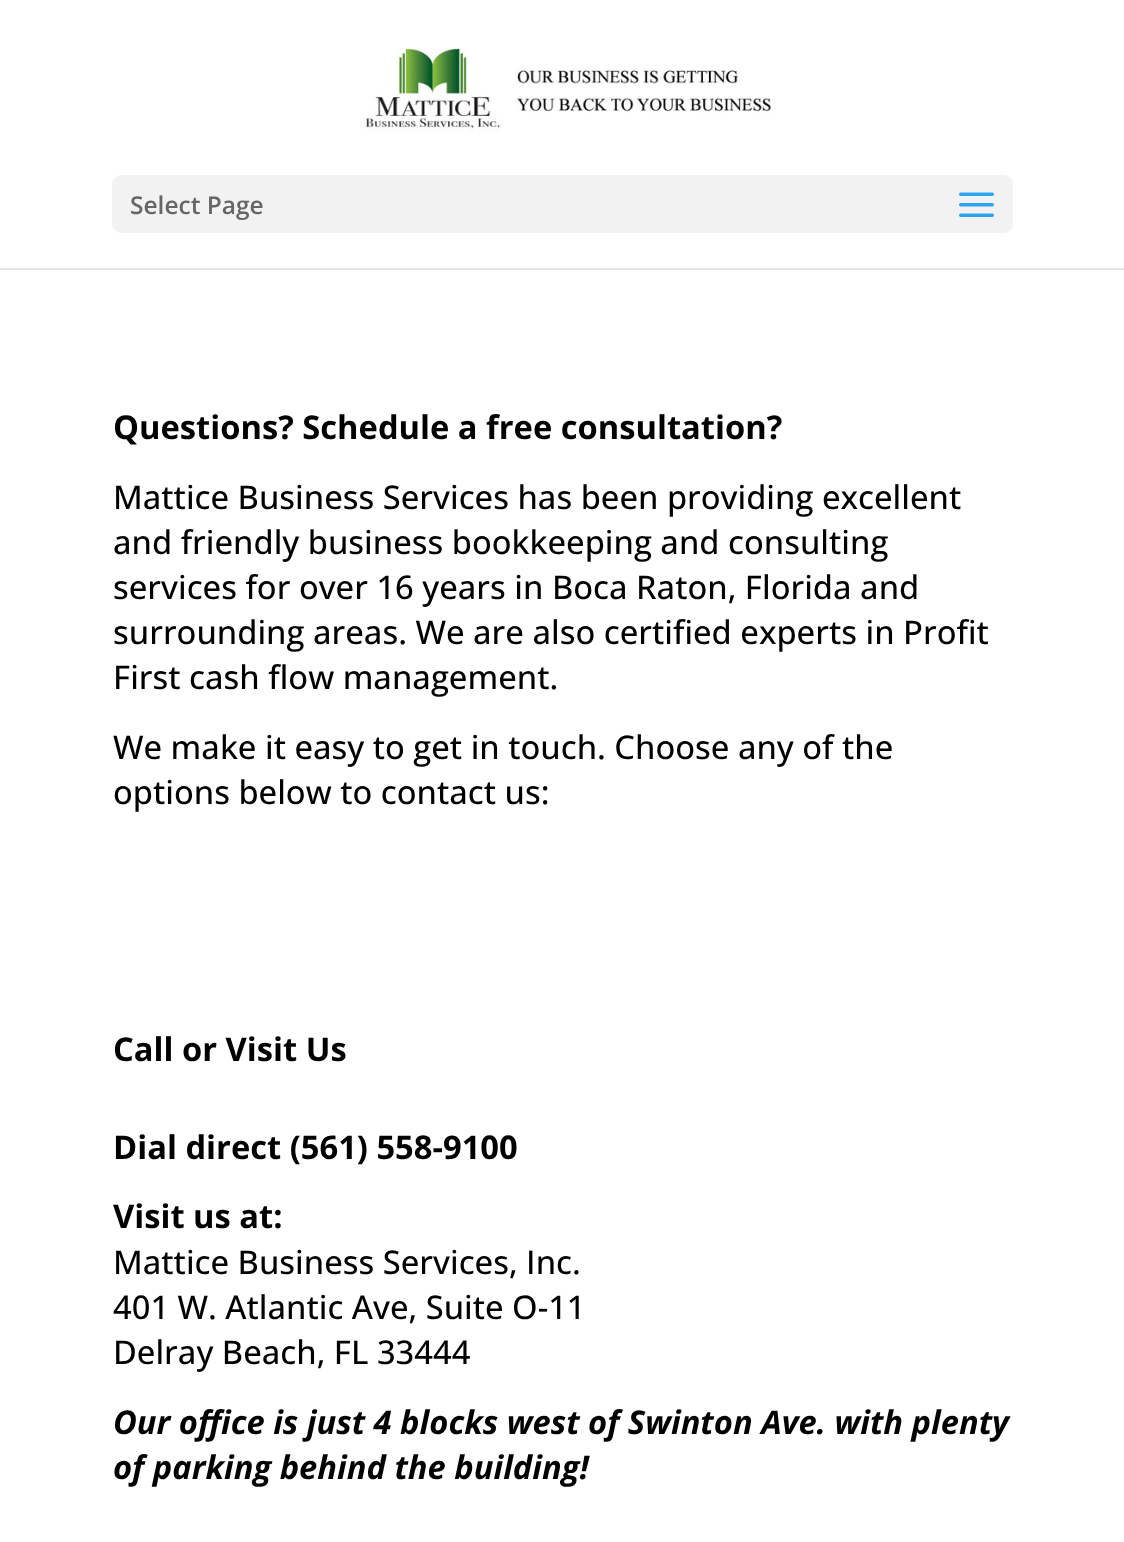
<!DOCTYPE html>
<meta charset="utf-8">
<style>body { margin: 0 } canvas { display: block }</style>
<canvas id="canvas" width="1124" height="1542"></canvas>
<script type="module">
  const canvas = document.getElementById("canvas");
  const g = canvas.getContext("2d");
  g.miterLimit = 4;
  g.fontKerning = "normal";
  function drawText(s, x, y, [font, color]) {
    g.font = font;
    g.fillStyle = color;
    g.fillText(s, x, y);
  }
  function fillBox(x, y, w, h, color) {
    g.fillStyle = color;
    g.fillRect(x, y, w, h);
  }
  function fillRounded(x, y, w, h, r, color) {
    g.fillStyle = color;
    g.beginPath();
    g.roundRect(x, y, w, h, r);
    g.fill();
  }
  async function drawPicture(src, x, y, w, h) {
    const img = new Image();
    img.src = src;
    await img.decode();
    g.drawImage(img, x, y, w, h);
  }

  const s1 = ["600 24.5px Open Sans", "#666666"];
  const s2 = ["bold 32.7px Open Sans", "#000000"];
  const s3 = ["500 32.7px Open Sans", "#000000"];
  const s4 = ["italic bold 32.7px Open Sans", "#000000"];

  fillBox(0, 0, 1124, 1542, "#FFFFFF");
  fillBox(0, 268, 1124, 2, "#E6E6E6");
  await drawPicture("pic1.png", 364, 48, 407, 84);
  fillRounded(112, 175, 901, 58, 9, "#F2F2F2");
  drawText("Select Page", 130, 214, s1);
  await drawPicture("pic2.png", 959, 192, 35, 25);
  drawText("Questions? Schedule a free consultation?", 113, 439, s2);
  drawText("Mattice Business Services has been providing excellent", 113, 509, s3);
  drawText("and friendly business bookkeeping and consulting", 113, 554, s3);
  drawText("services for over 16 years in Boca Raton, Florida and", 113, 599, s3);
  drawText("surrounding areas. We are also certified experts in Profit", 113, 644, s3);
  drawText("First cash flow management.", 113, 689, s3);
  drawText("We make it easy to get in touch. Choose any of the", 113, 759, s3);
  drawText("options below to contact us:", 113, 804, s3);
  drawText("Call or Visit Us", 113, 1061, s2);
  drawText("Dial direct (561) 558-9100", 113, 1159, s2);
  drawText("Visit us at:", 113, 1228, s2);
  drawText("Mattice Business Services, Inc.", 113, 1274, s3);
  drawText("401 W. Atlantic Ave, Suite O-11", 113, 1319, s3);
  drawText("Delray Beach, FL 33444", 113, 1364, s3);
  drawText("Our office is just 4 blocks west of Swinton Ave. with plenty", 113, 1434, s4);
  drawText("of parking behind the building!", 113, 1479, s4);
</script>
